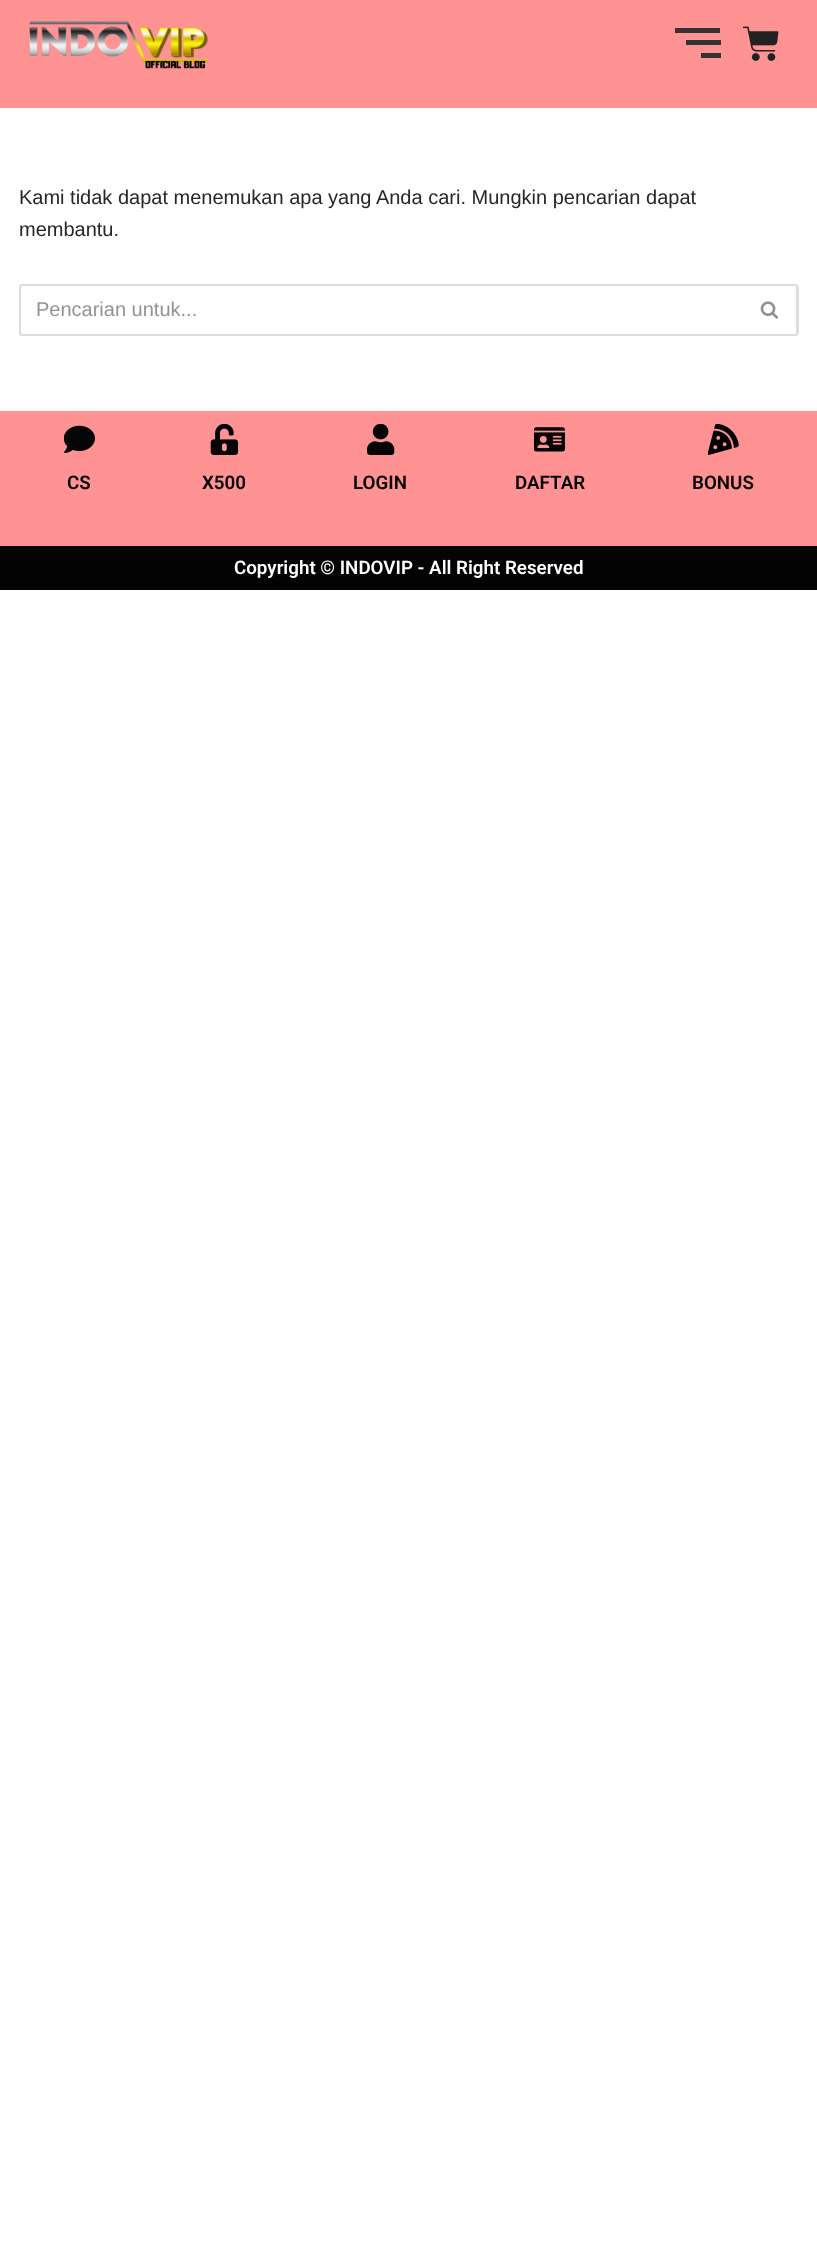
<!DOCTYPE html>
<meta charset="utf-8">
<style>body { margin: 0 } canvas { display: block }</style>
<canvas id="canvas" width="817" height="2251"></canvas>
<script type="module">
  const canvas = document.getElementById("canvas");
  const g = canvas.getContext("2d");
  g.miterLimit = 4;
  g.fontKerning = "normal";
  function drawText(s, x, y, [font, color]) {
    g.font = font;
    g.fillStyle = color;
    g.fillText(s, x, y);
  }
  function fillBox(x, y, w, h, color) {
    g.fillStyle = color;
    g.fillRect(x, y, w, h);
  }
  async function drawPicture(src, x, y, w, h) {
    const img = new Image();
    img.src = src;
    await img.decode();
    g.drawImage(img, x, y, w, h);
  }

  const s1 = ["20px Liberation Sans", "#272626"];
  const s2 = ["20px Liberation Sans", "#939393"];
  const s3 = ["600 18.75px Roboto", "#000000"];
  const s4 = ["600 18.75px Roboto", "#FFFFFF"];

  fillBox(0, 0, 817, 2251, "#FFFFFF");
  fillBox(0, 0, 817, 108, "#FF9292");
  await drawPicture("pic1.png", 29, 20, 180, 49);
  fillBox(675, 28, 45, 5, "#333333");
  fillBox(686, 40, 35, 5, "#333333");
  fillBox(701, 53, 20, 5, "#333333");
  await drawPicture("pic2.png", 743, 26, 36, 35);
  drawText("Kami tidak dapat menemukan apa yang Anda cari. Mungkin pencarian dapat", 19, 204, s1);
  drawText("membantu.", 19, 236, s1);
  g.fillStyle = "#DDDDDD";
  g.beginPath();
  g.moveTo(22, 284);
  g.lineTo(742, 284);
  g.lineTo(742, 336);
  g.lineTo(22, 336);
  g.bezierCurveTo(20, 336, 19, 335, 19, 332);
  g.lineTo(19, 288);
  g.bezierCurveTo(19, 285, 20, 284, 22, 284);
  g.closePath();
  g.moveTo(22, 286);
  g.lineTo(742, 286);
  g.lineTo(742, 334);
  g.lineTo(22, 334);
  g.bezierCurveTo(22, 334, 21, 333, 21, 332);
  g.lineTo(21, 288);
  g.bezierCurveTo(21, 287, 22, 286, 22, 286);
  g.closePath();
  g.fill("evenodd");
  drawText("Pencarian untuk...", 36, 316, s2);
  g.fillStyle = "#DDDDDD";
  g.beginPath();
  g.moveTo(742, 284);
  g.lineTo(795, 284);
  g.bezierCurveTo(797, 284, 799, 285, 799, 288);
  g.lineTo(799, 332);
  g.bezierCurveTo(799, 335, 797, 336, 795, 336);
  g.lineTo(742, 336);
  g.closePath();
  g.moveTo(742, 286);
  g.lineTo(795, 286);
  g.bezierCurveTo(796, 286, 796, 287, 796, 288);
  g.lineTo(796, 332);
  g.bezierCurveTo(796, 333, 796, 334, 795, 334);
  g.lineTo(742, 334);
  g.closePath();
  g.fill("evenodd");
  await drawPicture("pic3.png", 760, 301, 18, 18);
  fillBox(0, 411, 817, 135, "#FF9292");
  await drawPicture("pic4.png", 64, 425, 31, 28);
  drawText("CS", 67, 489, s3);
  await drawPicture("pic5.png", 210, 424, 29, 31);
  drawText("X500", 202, 489, s3);
  await drawPicture("pic6.png", 366, 424, 29, 31);
  drawText("LOGIN", 353, 489, s3);
  await drawPicture("pic7.png", 534, 427, 31, 25);
  drawText("DAFTAR", 515, 489, s3);
  await drawPicture("pic8.png", 708, 424, 31, 31);
  drawText("BONUS", 692, 489, s3);
  fillBox(0, 546, 817, 44, "#030303");
  drawText("Copyright © INDOVIP - All Right Reserved", 234, 574, s4);
</script>
